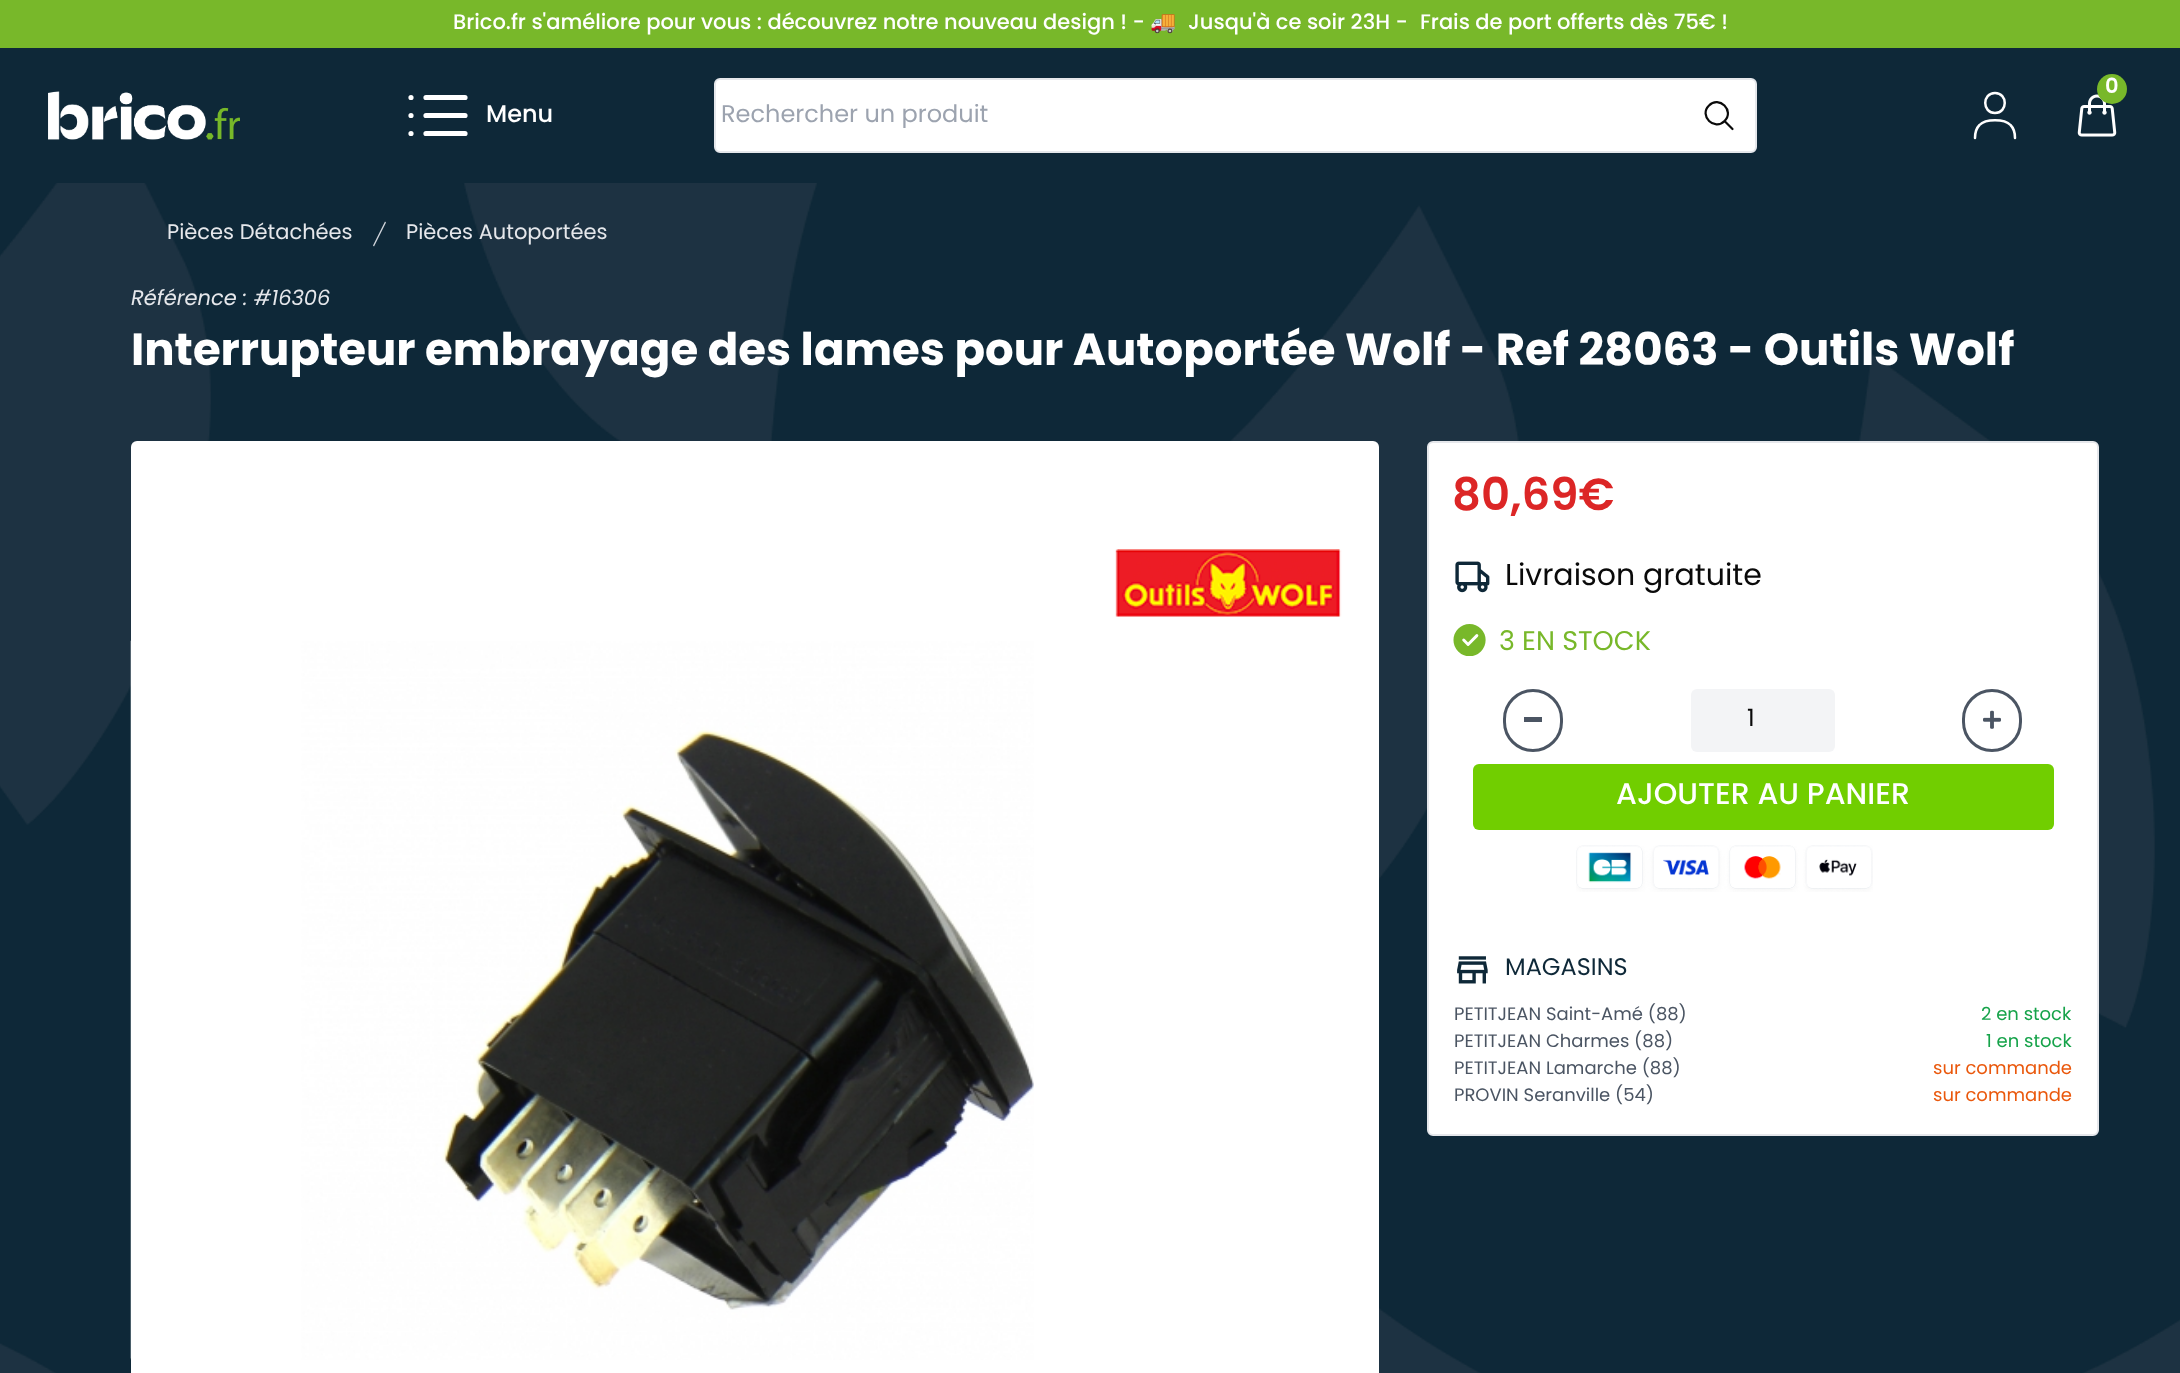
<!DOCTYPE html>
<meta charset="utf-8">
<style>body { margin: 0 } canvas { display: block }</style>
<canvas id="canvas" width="2180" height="1373"></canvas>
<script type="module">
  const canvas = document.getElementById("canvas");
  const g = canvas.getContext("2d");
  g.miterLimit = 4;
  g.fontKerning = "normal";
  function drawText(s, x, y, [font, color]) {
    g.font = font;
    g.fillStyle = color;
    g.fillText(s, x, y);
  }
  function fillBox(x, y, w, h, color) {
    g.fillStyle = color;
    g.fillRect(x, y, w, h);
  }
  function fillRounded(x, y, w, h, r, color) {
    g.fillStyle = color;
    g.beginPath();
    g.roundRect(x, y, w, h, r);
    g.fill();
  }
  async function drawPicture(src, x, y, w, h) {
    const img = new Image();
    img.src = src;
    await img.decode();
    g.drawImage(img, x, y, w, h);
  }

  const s1 = ["500 21px Poppins", "#FFFFFF"];
  const s2 = ["21px Noto Color Emoji", "#FFFFFF"];
  const s3 = ["600 21px Poppins", "#FFFFFF"];
  const s4 = ["500 24px Poppins", "#FFFFFF"];
  const s5 = ["24px Poppins", "#9CA3AF"];
  const s6 = ["21px Poppins", "#E5E7EB"];
  const s7 = ["italic 21px Poppins", "#E5E7EB"];
  const s8 = ["bold 45px Poppins", "#FFFFFF"];
  const s9 = ["600 45px Poppins", "#DC2626"];
  const s10 = ["30px Poppins", "#0A0A0A"];
  const s11 = ["27px Poppins", "#78B82A"];
  const s12 = ["24px Poppins", "#0A0A0A"];
  const s13 = ["500 30px Poppins", "#FFFFFF"];
  const s14 = ["24px Poppins", "#0E2838"];
  const s15 = ["18px Poppins", "#4B5563"];
  const s16 = ["18px Poppins", "#16A34A"];
  const s17 = ["18px Poppins", "#EA580C"];

  fillBox(0, 0, 2180, 1373, "#0E2838");
  await drawPicture("pic1.png", 0, 183, 2180, 1190);
  fillBox(0, 0, 2180, 48, "#78B82A");
  drawText("Brico.fr s'améliore pour vous : découvrez notre nouveau design ! -", 453, 29, s1);
  drawText("🚚", 1150, 29, s2);
  drawText("Jusqu'à ce soir 23H -", 1188, 29, s1);
  drawText("Frais de port offerts dès 75€ !", 1420, 29, s1);
  await drawPicture("pic2.png", 2077, 94, 40, 43);
  g.fillStyle = "#78B82A";
  g.beginPath();
  g.arc(2112, 89, 15, 0, Math.PI * 2);
  g.fill();
  drawText("0", 2105, 93, s3);
  g.beginPath();
  g.moveTo(1975, 138);
  g.bezierCurveTo(1975, 133, 1976, 128.5, 1979.5, 125);
  g.bezierCurveTo(1985.5, 118.5, 2004.5, 118.5, 2010.5, 125);
  g.bezierCurveTo(2014, 128.5, 2015, 133, 2015, 138);
  g.moveTo(1995, 113);
  g.bezierCurveTo(1982, 113, 1982, 93, 1995, 93);
  g.bezierCurveTo(2008, 93, 2008, 113, 1995, 113);
  g.strokeStyle = "#FFFFFF";
  g.lineWidth = 2.5;
  g.lineCap = "round";
  g.stroke();
  await drawPicture("pic3.png", 48, 91, 192, 49);
  g.beginPath();
  g.moveTo(426, 97.5);
  g.lineTo(465, 97.5);
  g.moveTo(426, 115.5);
  g.lineTo(465, 115.5);
  g.moveTo(426, 133.5);
  g.lineTo(465, 133.5);
  g.moveTo(411, 97.5);
  g.lineTo(411, 97.5);
  g.moveTo(411, 115.5);
  g.lineTo(411, 115.5);
  g.moveTo(411, 133.5);
  g.lineTo(411, 133.5);
  g.lineWidth = 5.2;
  g.lineJoin = "round";
  g.stroke();
  drawText("Menu", 486, 122, s4);
  g.beginPath();
  g.roundRect(715, 79, 1041, 73, 5);
  g.fill();
  g.strokeStyle = "#E5E7EB";
  g.lineWidth = 2;
  g.lineJoin = "miter";
  g.stroke();
  g.save();
  g.beginPath();
  g.rect(722, 104, 945, 24);
  g.clip();
  drawText("Rechercher un produit", 721, 122, s5);
  g.restore();
  g.beginPath();
  g.moveTo(1732.5, 129);
  g.lineTo(1724.5, 121);
  g.moveTo(1724.5, 121);
  g.bezierCurveTo(1735, 111, 1719, 95, 1709, 105.5);
  g.bezierCurveTo(1698.5, 115.5, 1714.5, 131.5, 1724.5, 121);
  g.closePath();
  g.strokeStyle = "#0A0A0A";
  g.lineWidth = 2.2;
  g.lineJoin = "round";
  g.stroke();
  drawText("Pièces Détachées", 167, 239, s6);
  g.fillStyle = "#D1D5DB";
  g.beginPath();
  g.moveTo(373, 245.5);
  g.lineTo(385, 221.5);
  g.lineTo(386, 222.5);
  g.lineTo(374, 246.5);
  g.closePath();
  g.fill();
  drawText("Pièces Autoportées", 406, 239, s6);
  drawText("Référence : #16306", 131, 305, s7);
  drawText("Interrupteur embrayage des lames pour Autoportée Wolf - Ref 28063 - Outils Wolf", 131, 365, s8);
  fillRounded(131, 441, 1248, 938, 6, "#FFFFFF");
  await drawPicture("pic4.png", 1115, 549, 227, 68);
  await drawPicture("pic5.png", 130, 640, 904, 720);
  g.beginPath();
  g.roundRect(1428, 442, 670, 693, 5);
  g.fill();
  g.strokeStyle = "#E5E7EB";
  g.lineWidth = 2;
  g.lineJoin = "miter";
  g.stroke();
  drawText("80,69€", 1452, 510, s9);
  await drawPicture("pic6.png", 1455, 561, 35, 32);
  drawText("Livraison gratuite", 1505, 585, s10);
  await drawPicture("pic7.png", 1453, 624, 33, 32);
  drawText("3 EN STOCK", 1499, 650, s11);
  g.beginPath();
  g.roundRect(1504.5, 690.5, 57, 60, 28.5);
  g.strokeStyle = "#4B5563";
  g.lineWidth = 3;
  g.stroke();
  fillBox(1524, 717, 18, 5, "#4B5563");
  fillRounded(1691, 689, 144, 63, 6, "#F3F4F6");
  drawText("1", 1747, 726, s12);
  g.beginPath();
  g.roundRect(1963.5, 690.5, 57, 60, 28.5);
  g.stroke();
  await drawPicture("pic8.png", 1983, 710, 18, 19);
  fillRounded(1473, 764, 581, 66, 6, "#71CE00");
  drawText("AJOUTER AU PANIER", 1616, 804, s13);
  await drawPicture("pic9.png", 1576, 845, 297, 47);
  await drawPicture("pic10.png", 1457, 956, 31, 28);
  drawText("MAGASINS", 1505, 975, s14);
  drawText("PETITJEAN Saint-Amé (88)", 1454, 1020, s15);
  drawText("2 en stock", 1981, 1020, s16);
  drawText("PETITJEAN Charmes (88)", 1454, 1047, s15);
  drawText("1 en stock", 1986, 1047, s16);
  drawText("PETITJEAN Lamarche (88)", 1454, 1074, s15);
  drawText("sur commande", 1933, 1074, s17);
  drawText("PROVIN Seranville (54)", 1454, 1101, s15);
  drawText("sur commande", 1933, 1101, s17);
</script>
